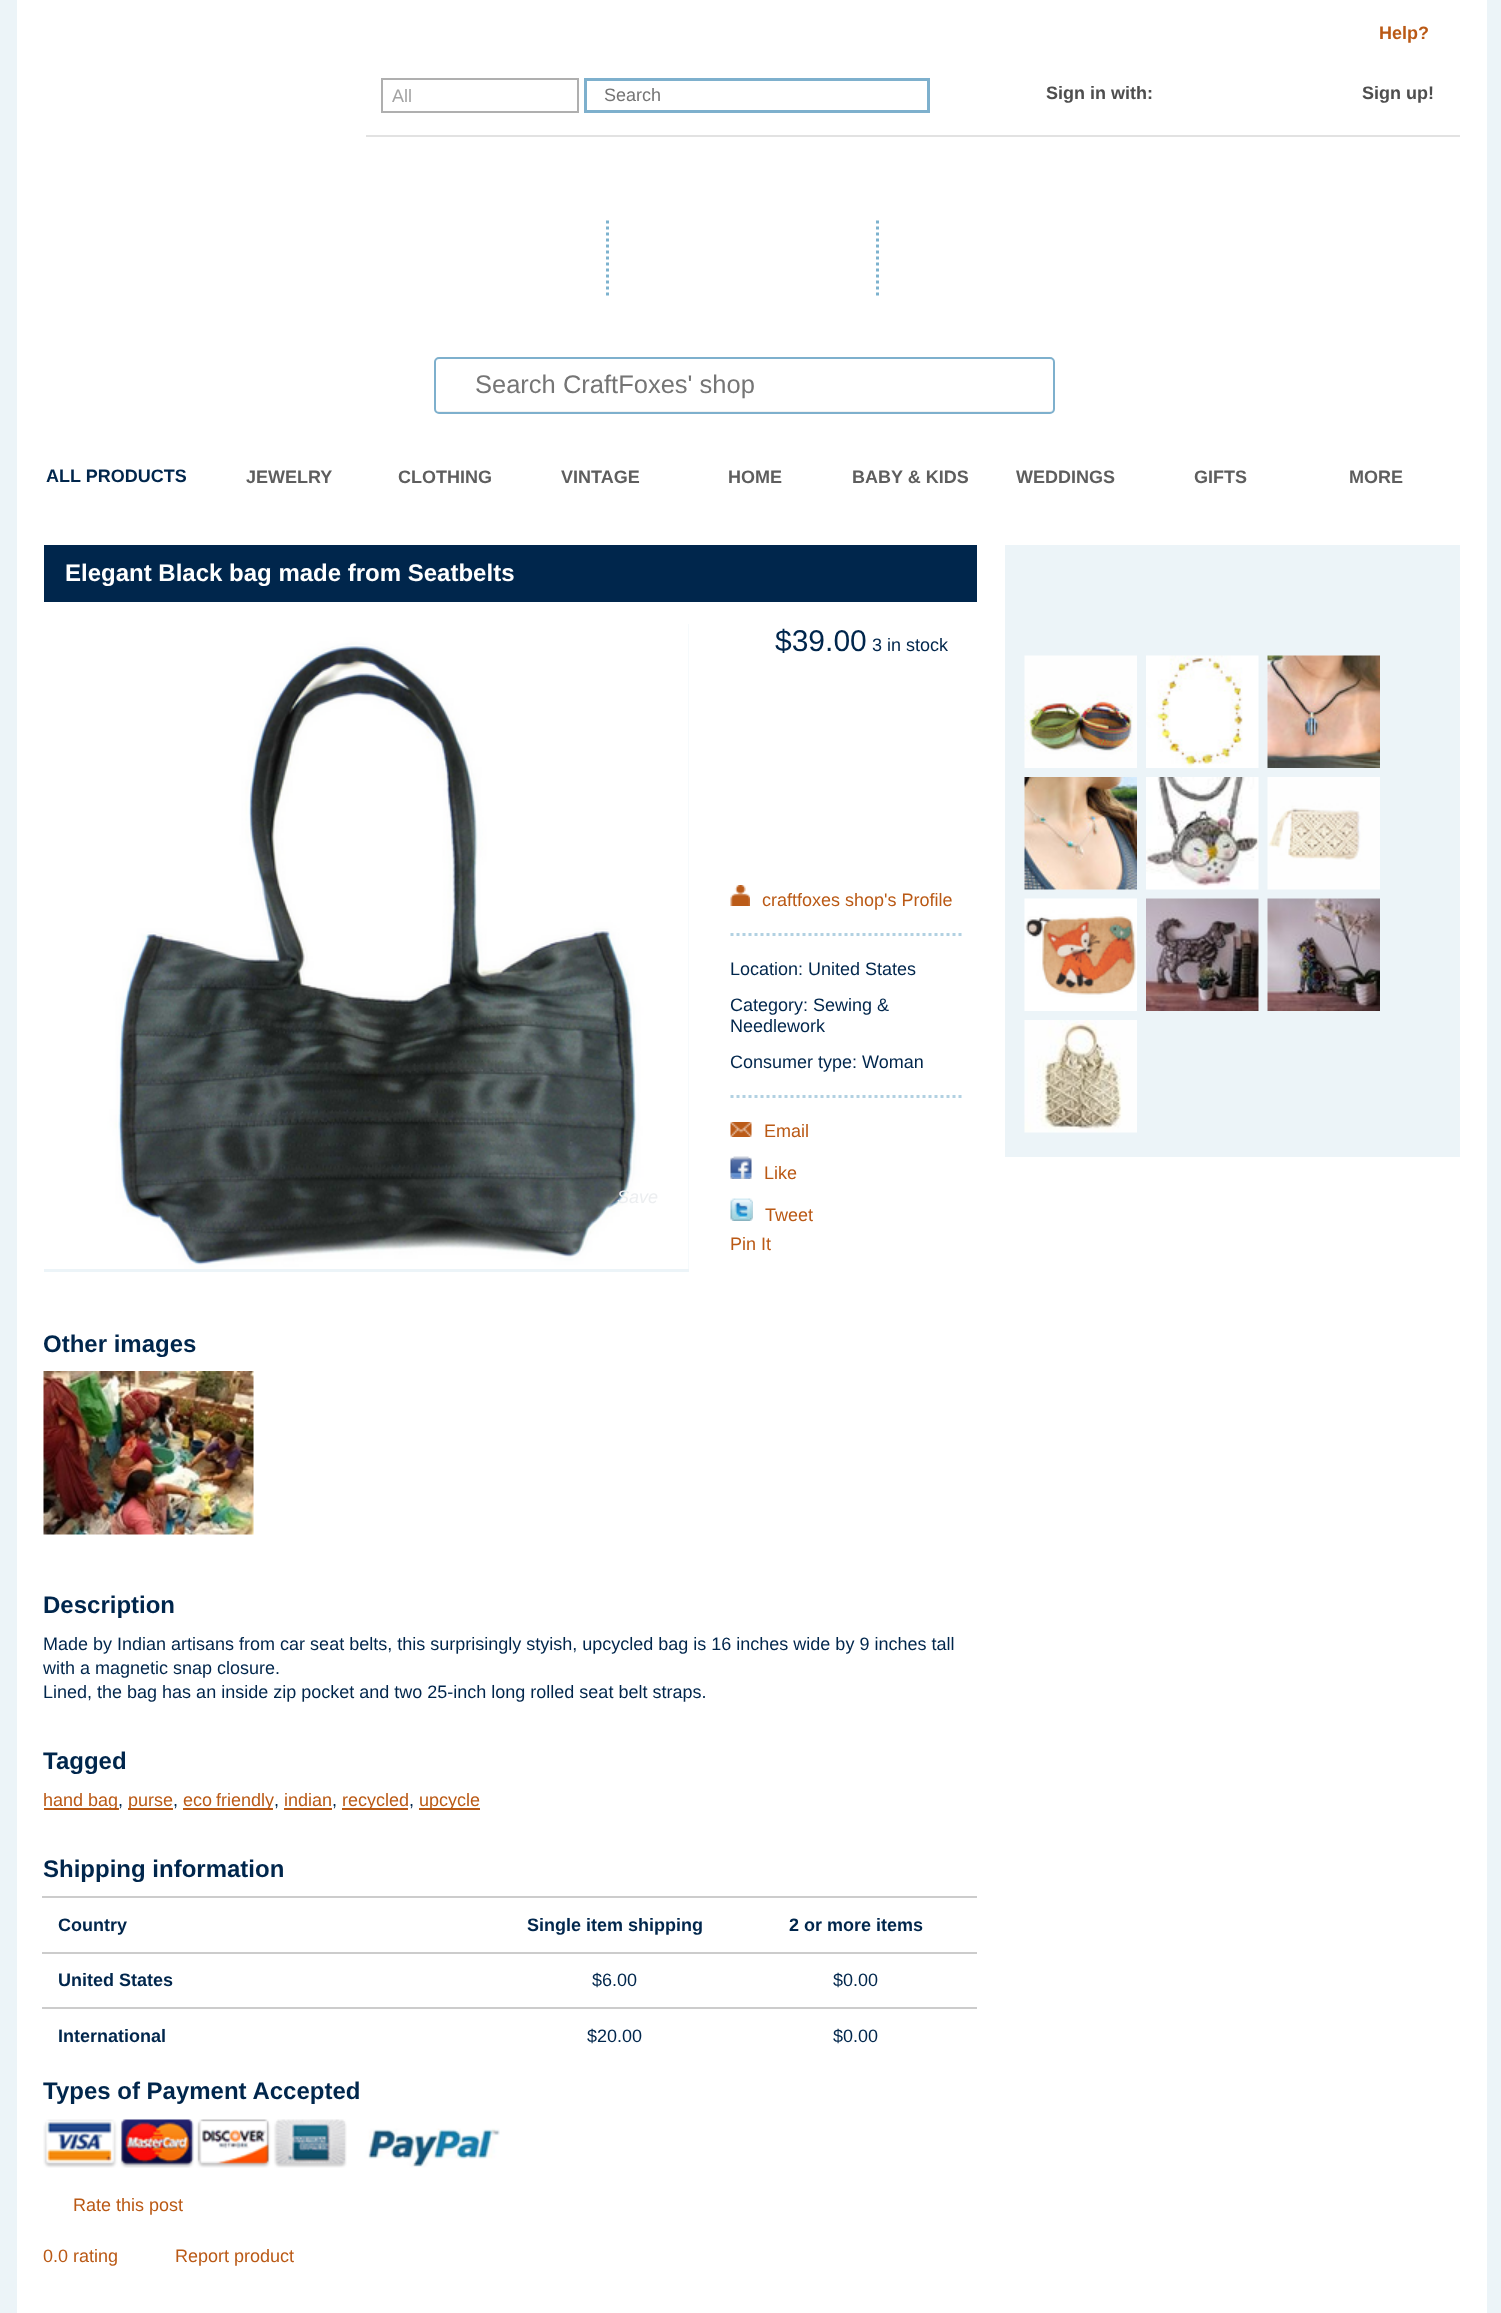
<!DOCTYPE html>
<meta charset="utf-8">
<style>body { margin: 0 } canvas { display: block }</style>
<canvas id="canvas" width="1501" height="2313"></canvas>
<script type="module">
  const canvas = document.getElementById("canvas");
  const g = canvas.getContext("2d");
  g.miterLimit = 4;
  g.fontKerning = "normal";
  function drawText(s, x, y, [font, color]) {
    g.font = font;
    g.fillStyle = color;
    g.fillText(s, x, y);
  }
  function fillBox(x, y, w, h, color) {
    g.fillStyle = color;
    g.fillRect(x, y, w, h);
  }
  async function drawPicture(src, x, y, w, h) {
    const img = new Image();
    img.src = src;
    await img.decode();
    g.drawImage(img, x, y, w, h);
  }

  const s1 = ["bold 18px Liberation Sans", "#BA5915"];
  const s2 = ["18px Liberation Sans", "#A3A3A3"];
  const s3 = ["18px Liberation Sans", "#757575"];
  const s4 = ["bold 18px Liberation Sans", "#4E4E4E"];
  const s5 = ["25.5px Liberation Sans", "#757575"];
  const s6 = ["bold 18px Liberation Sans", "#00264C"];
  const s7 = ["bold 18px Liberation Sans", "#5E5E5E"];
  const s8 = ["bold 24px Liberation Sans", "#FFFFFF"];
  const s9 = ["italic 18px Liberation Sans", "#ECEEF0"];
  const s10 = ["30px Liberation Sans", "#00264C"];
  const s11 = ["18px Liberation Sans", "#00264C"];
  const s12 = ["18px Liberation Sans", "#BA5915"];
  const s13 = ["bold 24px Liberation Sans", "#00264C"];

  fillBox(0, 0, 1501, 2313, "#ECF4F8");
  fillBox(17, 0, 1470, 2313, "#FFFFFF");
  drawText("Help?", 1379, 39, s1);
  fillBox(366, 135, 1094, 2, "#E2E2E2");
  g.strokeStyle = "#AFAFAF";
  g.lineWidth = 2;
  g.strokeRect(382, 79, 196, 33);
  drawText("All", 392, 102, s2);
  g.strokeStyle = "#7EB0CD";
  g.lineWidth = 3;
  g.strokeRect(585.5, 79.5, 343, 32);
  drawText("Search", 604, 101, s3);
  drawText("Sign in with:", 1046, 99, s4);
  drawText("Sign up!", 1362, 99, s4);
  g.beginPath();
  g.moveTo(607.5, 220.5);
  g.lineTo(607.5, 295.5);
  g.strokeStyle = "#7DB2CE";
  g.setLineDash([3, 3]);
  g.stroke();
  g.beginPath();
  g.moveTo(877.5, 220.5);
  g.lineTo(877.5, 295.5);
  g.stroke();
  g.fillStyle = "#F2F2F2";
  g.beginPath();
  g.moveTo(435, 408);
  g.bezierCurveTo(435, 410, 435, 413, 438, 413);
  g.lineTo(1050, 413);
  g.bezierCurveTo(1053, 413, 1053, 410, 1053, 408);
  g.bezierCurveTo(1053, 410, 1052, 411, 1050, 411);
  g.lineTo(438, 411);
  g.bezierCurveTo(436, 411, 435, 410, 435, 408);
  g.closePath();
  g.fill();
  g.beginPath();
  g.roundRect(435, 358, 619, 55, 4);
  g.strokeStyle = "#7EB0CD";
  g.lineWidth = 2;
  g.setLineDash([]);
  g.stroke();
  drawText("Search CraftFoxes' shop", 475, 393, s5);
  drawText("ALL PRODUCTS", 46, 482, s6);
  drawText("JEWELRY", 246, 483, s7);
  drawText("CLOTHING", 398, 483, s7);
  drawText("VINTAGE", 561, 483, s7);
  drawText("HOME", 728, 483, s7);
  drawText("BABY & KIDS", 852, 483, s7);
  drawText("WEDDINGS", 1016, 483, s7);
  drawText("GIFTS", 1194, 483, s7);
  drawText("MORE", 1349, 483, s7);
  fillBox(44, 545, 933, 57, "#00264C");
  drawText("Elegant Black bag made from Seatbelts", 65, 581, s8);
  fillBox(44, 624, 645, 648, "#ECF4F8");
  await drawPicture("pic1.png", 44, 624, 645, 645);
  drawText("Save", 617, 1203, s9);
  drawText("$39.00", 775, 651, s10);
  drawText("3 in stock", 872, 651, s11);
  await drawPicture("pic2.png", 730, 885, 20, 21);
  drawText("craftfoxes shop's Profile", 762, 906, s12);
  g.beginPath();
  g.moveTo(730.5, 934.5);
  g.lineTo(963, 934.5);
  g.strokeStyle = "#B2D1E2";
  g.lineWidth = 3;
  g.setLineDash([3, 3]);
  g.stroke();
  g.beginPath();
  g.moveTo(730.5, 1096.5);
  g.lineTo(963, 1096.5);
  g.stroke();
  drawText("Location: United States", 730, 975, s11);
  drawText("Category: Sewing &", 730, 1011, s11);
  drawText("Needlework", 730, 1032, s11);
  drawText("Consumer type: Woman", 730, 1068, s11);
  await drawPicture("pic3.png", 730, 1122, 22, 15);
  drawText("Email", 764, 1137, s12);
  await drawPicture("pic4.png", 730, 1156, 22, 23);
  drawText("Like", 764, 1179, s12);
  await drawPicture("pic5.png", 730, 1198, 23, 23);
  drawText("Tweet", 765, 1221, s12);
  drawText("Pin It", 730, 1250, s12);
  drawText("Other images", 43, 1352, s13);
  await drawPicture("pic6.png", 43, 1371, 211, 164);
  drawText("Description", 43, 1613, s13);
  drawText("Made by Indian artisans from car seat belts, this surprisingly styish, upcycled bag is 16 inches wide by 9 inches tall", 43, 1650, s11);
  drawText("with a magnetic snap closure.", 43, 1674, s11);
  drawText("Lined, the bag has an inside zip pocket and two 25-inch long rolled seat belt straps.", 43, 1698, s11);
  drawText("Tagged", 43, 1769, s13);
  fillBox(44, 1808, 75, 2, "#BA5915");
  drawText("hand bag", 43, 1806, s12);
  drawText(",", 118, 1806, s11);
  fillBox(128, 1808, 45, 2, "#BA5915");
  drawText("purse", 128, 1806, s12);
  drawText(",", 173, 1806, s11);
  fillBox(183, 1808, 90, 2, "#BA5915");
  g.wordSpacing = "-1px";
  drawText("eco friendly", 183, 1806, s12);
  g.wordSpacing = "0px";
  drawText(",", 274, 1806, s11);
  drawText("indian", 284, 1806, s12);
  fillBox(284, 1808, 48, 2, "#BA5915");
  drawText(",", 332, 1806, s11);
  fillBox(342, 1808, 66, 2, "#BA5915");
  drawText("recycled", 342, 1806, s12);
  drawText(",", 409, 1806, s11);
  fillBox(419, 1808, 61, 2, "#BA5915");
  drawText("upcycle", 419, 1806, s12);
  drawText("Shipping information", 43, 1877, s13);
  drawText("Country", 58, 1931, s6);
  drawText("Single item shipping", 527, 1931, s6);
  fillBox(42, 1896, 935, 2, "#CCCCCC");
  drawText("2 or more items", 789, 1931, s6);
  drawText("United States", 58, 1986, s6);
  drawText("$6.00", 592, 1986, s11);
  fillBox(42, 1952, 935, 2, "#CCCCCC");
  drawText("$0.00", 833, 1986, s11);
  drawText("International", 58, 2042, s6);
  drawText("$20.00", 587, 2042, s11);
  fillBox(42, 2007, 935, 2, "#CCCCCC");
  drawText("$0.00", 833, 2042, s11);
  drawText("Types of Payment Accepted", 43, 2099, s13);
  await drawPicture("pic7.png", 43, 2119, 457, 49);
  drawText("Rate this post", 73, 2211, s12);
  drawText("0.0 rating", 43, 2262, s12);
  drawText("Report product", 175, 2262, s12);
  fillBox(1005, 545, 455, 612, "#ECF4F8");
  await drawPicture("pic8.png", 1024, 655, 113, 113);
  await drawPicture("pic9.png", 1146, 655, 113, 113);
  await drawPicture("pic10.png", 1267, 655, 113, 113);
  await drawPicture("pic11.png", 1024, 777, 113, 113);
  await drawPicture("pic12.png", 1146, 777, 113, 113);
  await drawPicture("pic13.png", 1267, 777, 113, 113);
  await drawPicture("pic14.png", 1024, 898, 113, 113);
  await drawPicture("pic15.png", 1146, 898, 113, 113);
  await drawPicture("pic16.png", 1267, 898, 113, 113);
  await drawPicture("pic17.png", 1024, 1020, 113, 113);
</script>
